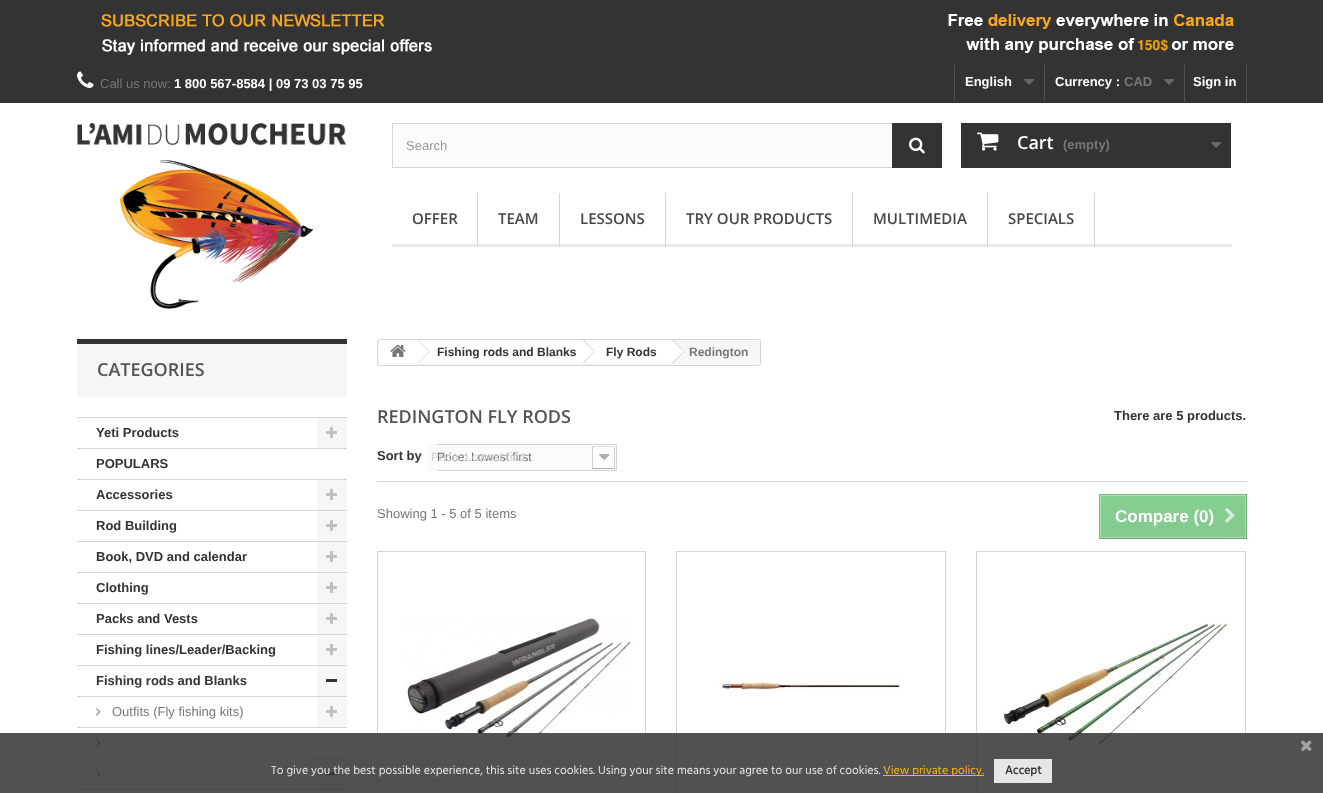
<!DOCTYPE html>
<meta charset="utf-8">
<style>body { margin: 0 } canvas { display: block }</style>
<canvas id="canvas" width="1323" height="793"></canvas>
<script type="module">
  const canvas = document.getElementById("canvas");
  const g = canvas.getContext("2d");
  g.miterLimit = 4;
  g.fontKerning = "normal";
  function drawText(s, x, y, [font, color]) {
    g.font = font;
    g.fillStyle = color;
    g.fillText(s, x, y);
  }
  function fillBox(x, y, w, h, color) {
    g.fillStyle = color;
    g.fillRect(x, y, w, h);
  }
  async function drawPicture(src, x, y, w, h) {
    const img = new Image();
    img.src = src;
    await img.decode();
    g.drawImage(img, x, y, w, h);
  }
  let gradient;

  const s1 = ["13px Liberation Sans", "#777777"];
  const s2 = ["bold 13px Liberation Sans", "#FFFFFF"];
  const s3 = ["bold 13px Liberation Sans", "#777777"];
  const s4 = ["13px Liberation Sans", "#999999"];
  const s5 = ["600 18px Open Sans", "#FFFFFF"];
  const s6 = ["600 15px Open Sans", "#484848"];
  const s7 = ["600 18px Open Sans", "#555454"];
  const s8 = ["bold 13px Liberation Sans", "#333333"];
  const s9 = ["bold 12px Liberation Sans", "#333333"];
  const s10 = ["bold 12px Liberation Sans", "#777777"];
  const s11 = ["12px Liberation Sans", "#666666"];
  const s12 = ["12px Liberation Sans", "#CFCFCF"];
  const s13 = ["bold 17px Liberation Sans", "#FFFFFF"];
  const s14 = ["12px Hind", "#E6E6E6"];
  const s15 = ["12px Hind", "#F4B61B"];
  const s16 = ["bold 12px Hind", "#333333"];

  fillBox(0, 0, 1323, 793, "#FFFFFF");
  fillBox(0, 0, 1323, 103, "#333333");
  await drawPicture("pic1.png", 101, 14, 1133, 41);
  await drawPicture("pic2.png", 77, 71, 17, 17);
  drawText("Call us now:", 100, 88, s1);
  drawText("1 800 567-8584 | 09 73 03 75 95", 174, 88, s2);
  fillBox(954, 65, 1, 36, "#515151");
  drawText("English", 965, 86, s2);
  await drawPicture("pic3.png", 1024, 79, 11, 6);
  fillBox(1044, 65, 1, 36, "#515151");
  drawText("Currency :", 1055, 86, s2);
  drawText("CAD", 1124, 86, s3);
  await drawPicture("pic3.png", 1164, 79, 11, 6);
  fillBox(1246, 65, 1, 37, "#515151");
  fillBox(1184, 65, 1, 37, "#515151");
  drawText("Sign in", 1193, 86, s2);
  await drawPicture("pic4.png", 77, 123, 269, 186);
  fillBox(393, 124, 499, 43, "#FBFBFB");
  g.strokeStyle = "#D6D4D4";
  g.strokeRect(392.5, 123.5, 549, 44);
  drawText("Search", 406, 150, s4);
  fillBox(892, 123, 50, 45, "#333333");
  await drawPicture("pic5.png", 909, 137, 16, 17);
  fillBox(961, 123, 270, 45, "#333333");
  await drawPicture("pic6.png", 977, 132, 22, 19);
  drawText("Cart", 1017, 149, s5);
  drawText("(empty)", 1063, 149, s3);
  await drawPicture("pic3.png", 1211, 142, 11, 6);
  fillBox(392, 244, 840, 3, "#E9E9E9");
  fillBox(477, 193, 1, 54, "#D6D4D4");
  drawText("OFFER", 412, 224, s6);
  fillBox(559, 193, 1, 54, "#D6D4D4");
  drawText("TEAM", 498, 224, s6);
  fillBox(665, 193, 1, 54, "#D6D4D4");
  drawText("LESSONS", 580, 224, s6);
  fillBox(852, 193, 1, 54, "#D6D4D4");
  drawText("TRY OUR PRODUCTS", 686, 224, s6);
  fillBox(987, 193, 1, 54, "#D6D4D4");
  drawText("MULTIMEDIA", 873, 224, s6);
  fillBox(1094, 193, 1, 54, "#D6D4D4");
  drawText("SPECIALS", 1008, 224, s6);
  fillBox(77, 344, 270, 53, "#F6F6F6");
  fillBox(77, 339, 270, 5, "#333333");
  drawText("CATEGORIES", 97, 376, s7);
  fillBox(77, 417, 270, 1, "#D6D4D4");
  fillBox(77, 448, 270, 1, "#D6D4D4");
  drawText("Yeti Products", 96, 437, s8);
  fillBox(317, 418, 30, 30, "#F6F6F6");
  await drawPicture("pic7.png", 326, 427, 11, 11);
  fillBox(77, 479, 270, 1, "#D6D4D4");
  drawText("POPULARS", 96, 468, s8);
  fillBox(77, 510, 270, 1, "#D6D4D4");
  drawText("Accessories", 96, 499, s8);
  fillBox(317, 480, 30, 30, "#F6F6F6");
  await drawPicture("pic7.png", 326, 489, 11, 11);
  fillBox(77, 541, 270, 1, "#D6D4D4");
  drawText("Rod Building", 96, 530, s8);
  fillBox(317, 511, 30, 30, "#F6F6F6");
  await drawPicture("pic7.png", 326, 520, 11, 11);
  fillBox(77, 572, 270, 1, "#D6D4D4");
  drawText("Book, DVD and calendar", 96, 561, s8);
  fillBox(317, 542, 30, 30, "#F6F6F6");
  await drawPicture("pic7.png", 326, 551, 11, 11);
  fillBox(77, 603, 270, 1, "#D6D4D4");
  drawText("Clothing", 96, 592, s8);
  fillBox(317, 573, 30, 30, "#F6F6F6");
  await drawPicture("pic7.png", 326, 582, 11, 11);
  fillBox(77, 634, 270, 1, "#D6D4D4");
  drawText("Packs and Vests", 96, 623, s8);
  fillBox(317, 604, 30, 30, "#F6F6F6");
  await drawPicture("pic7.png", 326, 613, 11, 11);
  fillBox(77, 665, 270, 1, "#D6D4D4");
  drawText("Fishing lines/Leader/Backing", 96, 654, s8);
  fillBox(317, 635, 30, 30, "#F6F6F6");
  await drawPicture("pic7.png", 326, 644, 11, 11);
  fillBox(77, 696, 270, 1, "#D6D4D4");
  drawText("Fishing rods and Blanks", 96, 685, s8);
  fillBox(317, 666, 30, 30, "#F6F6F6");
  fillBox(326, 679, 11, 3, "#333333");
  fillBox(77, 727, 270, 1, "#D6D4D4");
  await drawPicture("pic8.png", 96, 708, 5, 8);
  drawText("Outfits (Fly fishing kits)", 112, 716, s1);
  fillBox(317, 697, 30, 30, "#F6F6F6");
  await drawPicture("pic7.png", 326, 706, 11, 11);
  fillBox(77, 758, 270, 1, "#D6D4D4");
  await drawPicture("pic8.png", 96, 739, 5, 8);
  fillBox(317, 759, 30, 30, "#F6F6F6");
  fillBox(326, 772, 11, 3, "#333333");
  fillBox(77, 789, 270, 1, "#D6D4D4");
  await drawPicture("pic8.png", 96, 770, 5, 8);
  g.fillStyle = "#F6F6F6";
  g.beginPath();
  g.roundRect(377.5, 339.5, 383, 26, 2.5);
  g.fill();
  g.stroke();
  g.fillStyle = "#FFFFFF";
  g.beginPath();
  g.roundRect(379, 340, 38, 25, [3, 0, 0, 3]);
  g.fill();
  await drawPicture("pic9.png", 390, 344, 16, 13);
  fillBox(417, 340, 167, 24, "#FFFFFF");
  g.fillStyle = "#D6D4D4";
  g.beginPath();
  g.moveTo(418, 339.5);
  g.lineTo(429.5, 351);
  g.lineTo(429, 351.5);
  g.lineTo(417.5, 340);
  g.closePath();
  g.fill();
  g.beginPath();
  g.moveTo(429, 351.5);
  g.lineTo(429.5, 352);
  g.lineTo(418, 363.5);
  g.lineTo(417.5, 363);
  g.closePath();
  g.fill();
  drawText("Fishing rods and Blanks", 437, 356, s9);
  g.fillStyle = "#FFFFFF";
  g.beginPath();
  g.moveTo(594, 340);
  g.lineTo(591, 340);
  g.lineTo(581, 350);
  g.bezierCurveTo(580.5, 351, 580.5, 352, 581, 353);
  g.lineTo(591, 363);
  g.bezierCurveTo(592, 363.5, 593, 363.5, 594, 363);
  g.lineTo(604, 353);
  g.bezierCurveTo(604.5, 352, 604.5, 351, 604, 350);
  g.closePath();
  g.fill();
  fillBox(584, 340, 87, 24, "#FFFFFF");
  g.fillStyle = "#D6D4D4";
  g.beginPath();
  g.moveTo(584, 340);
  g.lineTo(594.5, 351);
  g.lineTo(594, 351.5);
  g.lineTo(582.5, 340);
  g.closePath();
  g.fill();
  g.beginPath();
  g.moveTo(594, 351.5);
  g.lineTo(594.5, 352);
  g.lineTo(583.5, 363.5);
  g.lineTo(582.5, 363);
  g.closePath();
  g.fill();
  drawText("Fly Rods", 606, 356, s9);
  g.fillStyle = "#FFFFFF";
  g.beginPath();
  g.moveTo(673.5, 340);
  g.lineTo(671, 340);
  g.lineTo(661, 350);
  g.bezierCurveTo(660, 351, 660, 352, 661, 353);
  g.lineTo(671, 363);
  g.bezierCurveTo(671.5, 363.5, 673, 363.5, 673.5, 363);
  g.lineTo(683.5, 353);
  g.bezierCurveTo(684.5, 352, 684.5, 351, 683.5, 350);
  g.closePath();
  g.fill();
  g.fillStyle = "#D6D4D4";
  g.beginPath();
  g.moveTo(673.5, 340);
  g.lineTo(684, 351);
  g.lineTo(683.5, 351.5);
  g.lineTo(672, 340);
  g.closePath();
  g.fill();
  g.beginPath();
  g.moveTo(683.5, 351.5);
  g.lineTo(684, 352);
  g.lineTo(673, 363.5);
  g.lineTo(672, 363);
  g.closePath();
  g.fill();
  drawText("Redington", 689, 356, s10);
  drawText("REDINGTON FLY RODS", 377, 423, s7);
  drawText("There are 5 products.", 1114, 420, s8);
  fillBox(377, 481, 870, 1, "#D6D4D4");
  drawText("Sort by", 377, 460, s8);
  fillBox(427, 444, 10, 27, "#FBFBFB");
  await drawPicture("pic10.png", 437, 444, 180, 27);
  drawText("Price: Lowest first", 437, 461, s11);
  drawText("Price: Lowest first", 431, 461, s12);
  drawText("Showing 1 - 5 of 5 items", 377, 518, s1);
  gradient = g.createLinearGradient(1173, 495, 1173, 538);
  gradient.addColorStop(0, "#85D090");
  gradient.addColorStop(1, "#84C98F");
  g.fillStyle = gradient;
  g.fillRect(1101, 496, 144, 41);
  fillBox(1099, 494, 148, 1, "#7EBD89");
  fillBox(1246, 494, 1, 45, "#71AC7A");
  fillBox(1099, 538, 148, 1, "#6AA073");
  fillBox(1099, 494, 1, 45, "#7EBD89");
  g.strokeStyle = "#A5E4A7";
  g.strokeRect(1100.5, 495.5, 145, 42);
  drawText("Compare (0)", 1115, 522, s13);
  await drawPicture("pic11.png", 1225, 508, 10, 15);
  g.strokeStyle = "#D6D4D4";
  g.strokeRect(377.5, 551.5, 268, 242);
  await drawPicture("pic12.png", 403, 617, 231, 127);
  g.strokeRect(676.5, 551.5, 269, 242);
  await drawPicture("pic13.png", 718, 673, 184, 18);
  g.strokeRect(976.5, 551.5, 269, 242);
  await drawPicture("pic14.png", 1002, 617, 228, 130);
  fillBox(0, 733, 1323, 60, "rgba(51, 51, 51, 0.85)");
  await drawPicture("pic15.png", 1301, 740, 11, 12);
  drawText("To give you the best possible experience, this site uses cookies. Using your site means your agree to our use of cookies.", 271, 774, s14);
  fillBox(883, 775, 101, 1, "#F4B61B");
  drawText("View private policy.", 883, 774, s15);
  fillBox(994, 759, 58, 24, "#E6E6E6");
  drawText("Accept", 1005, 774, s16);
</script>
